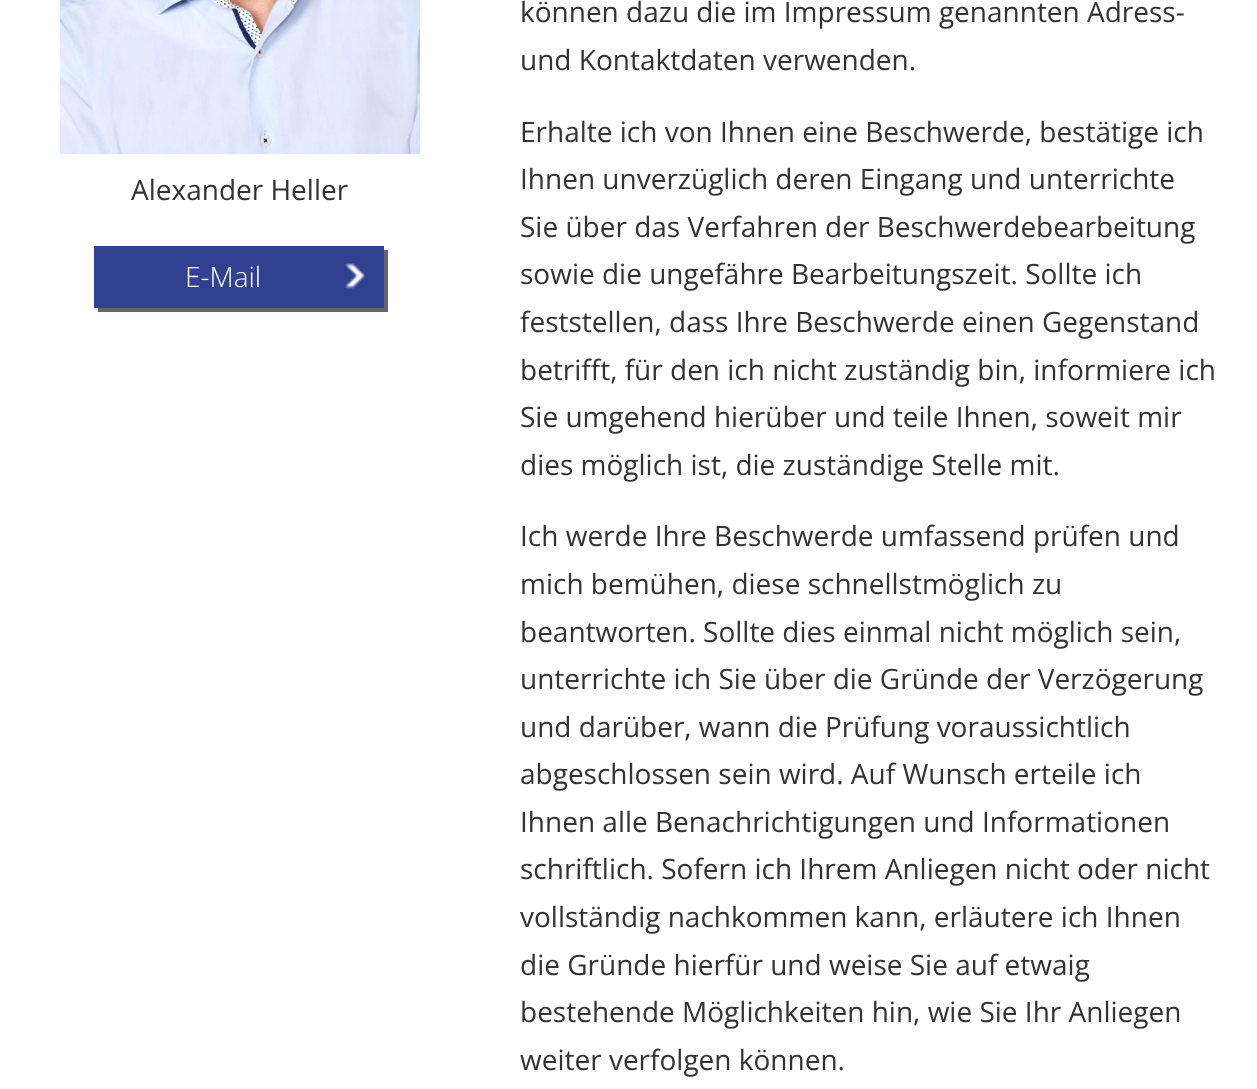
<!DOCTYPE html>
<meta charset="utf-8">
<style>body { margin: 0 } canvas { display: block }</style>
<canvas id="canvas" width="1257" height="1089"></canvas>
<script type="module">
  const canvas = document.getElementById("canvas");
  const g = canvas.getContext("2d");
  g.miterLimit = 4;
  g.fontKerning = "normal";
  function drawText(s, x, y, [font, color]) {
    g.font = font;
    g.fillStyle = color;
    g.fillText(s, x, y);
  }
  function fillBox(x, y, w, h, color) {
    g.fillStyle = color;
    g.fillRect(x, y, w, h);
  }
  async function drawPicture(src, x, y, w, h) {
    const img = new Image();
    img.src = src;
    await img.decode();
    g.drawImage(img, x, y, w, h);
  }

  const s1 = ["28px Open Sans", "#333333"];
  const s2 = ["300 28px Open Sans", "#FFFFFF"];

  fillBox(0, 0, 1257, 1089, "#FFFFFF");
  await drawPicture("pic1.png", 60, 0, 360, 154);
  drawText("Alexander Heller", 131, 200, s1);
  g.fillStyle = "#656565";
  g.beginPath();
  g.moveTo(98, 308);
  g.lineTo(98, 312);
  g.lineTo(388, 312);
  g.lineTo(388, 250);
  g.lineTo(384, 250);
  g.lineTo(384, 308);
  g.closePath();
  g.fill();
  fillBox(94, 246, 290, 62, "#2F418F");
  await drawPicture("pic2.png", 345, 263, 20, 26);
  drawText("E-Mail", 185, 287, s2);
  drawText("können dazu die im Impressum genannten Adress-", 520, 22, s1);
  drawText("und Kontaktdaten verwenden.", 520, 70, s1);
  drawText("Erhalte ich von Ihnen eine Beschwerde, bestätige ich", 520, 142, s1);
  drawText("Ihnen unverzüglich deren Eingang und unterrichte", 520, 189, s1);
  drawText("Sie über das Verfahren der Beschwerdebearbeitung", 520, 237, s1);
  drawText("sowie die ungefähre Bearbeitungszeit. Sollte ich", 520, 284, s1);
  drawText("feststellen, dass Ihre Beschwerde einen Gegenstand", 520, 332, s1);
  drawText("betrifft, für den ich nicht zuständig bin, informiere ich", 520, 380, s1);
  drawText("Sie umgehend hierüber und teile Ihnen, soweit mir", 520, 427, s1);
  drawText("dies möglich ist, die zuständige Stelle mit.", 520, 475, s1);
  drawText("Ich werde Ihre Beschwerde umfassend prüfen und", 520, 546, s1);
  drawText("mich bemühen, diese schnellstmöglich zu", 520, 594, s1);
  drawText("beantworten. Sollte dies einmal nicht möglich sein,", 520, 642, s1);
  drawText("unterrichte ich Sie über die Gründe der Verzögerung", 520, 689, s1);
  drawText("und darüber, wann die Prüfung voraussichtlich", 520, 737, s1);
  drawText("abgeschlossen sein wird. Auf Wunsch erteile ich", 520, 784, s1);
  drawText("Ihnen alle Benachrichtigungen und Informationen", 520, 832, s1);
  drawText("schriftlich. Sofern ich Ihrem Anliegen nicht oder nicht", 520, 879, s1);
  drawText("vollständig nachkommen kann, erläutere ich Ihnen", 520, 927, s1);
  drawText("die Gründe hierfür und weise Sie auf etwaig", 520, 975, s1);
  drawText("bestehende Möglichkeiten hin, wie Sie Ihr Anliegen", 520, 1022, s1);
  drawText("weiter verfolgen können.", 520, 1070, s1);
</script>
